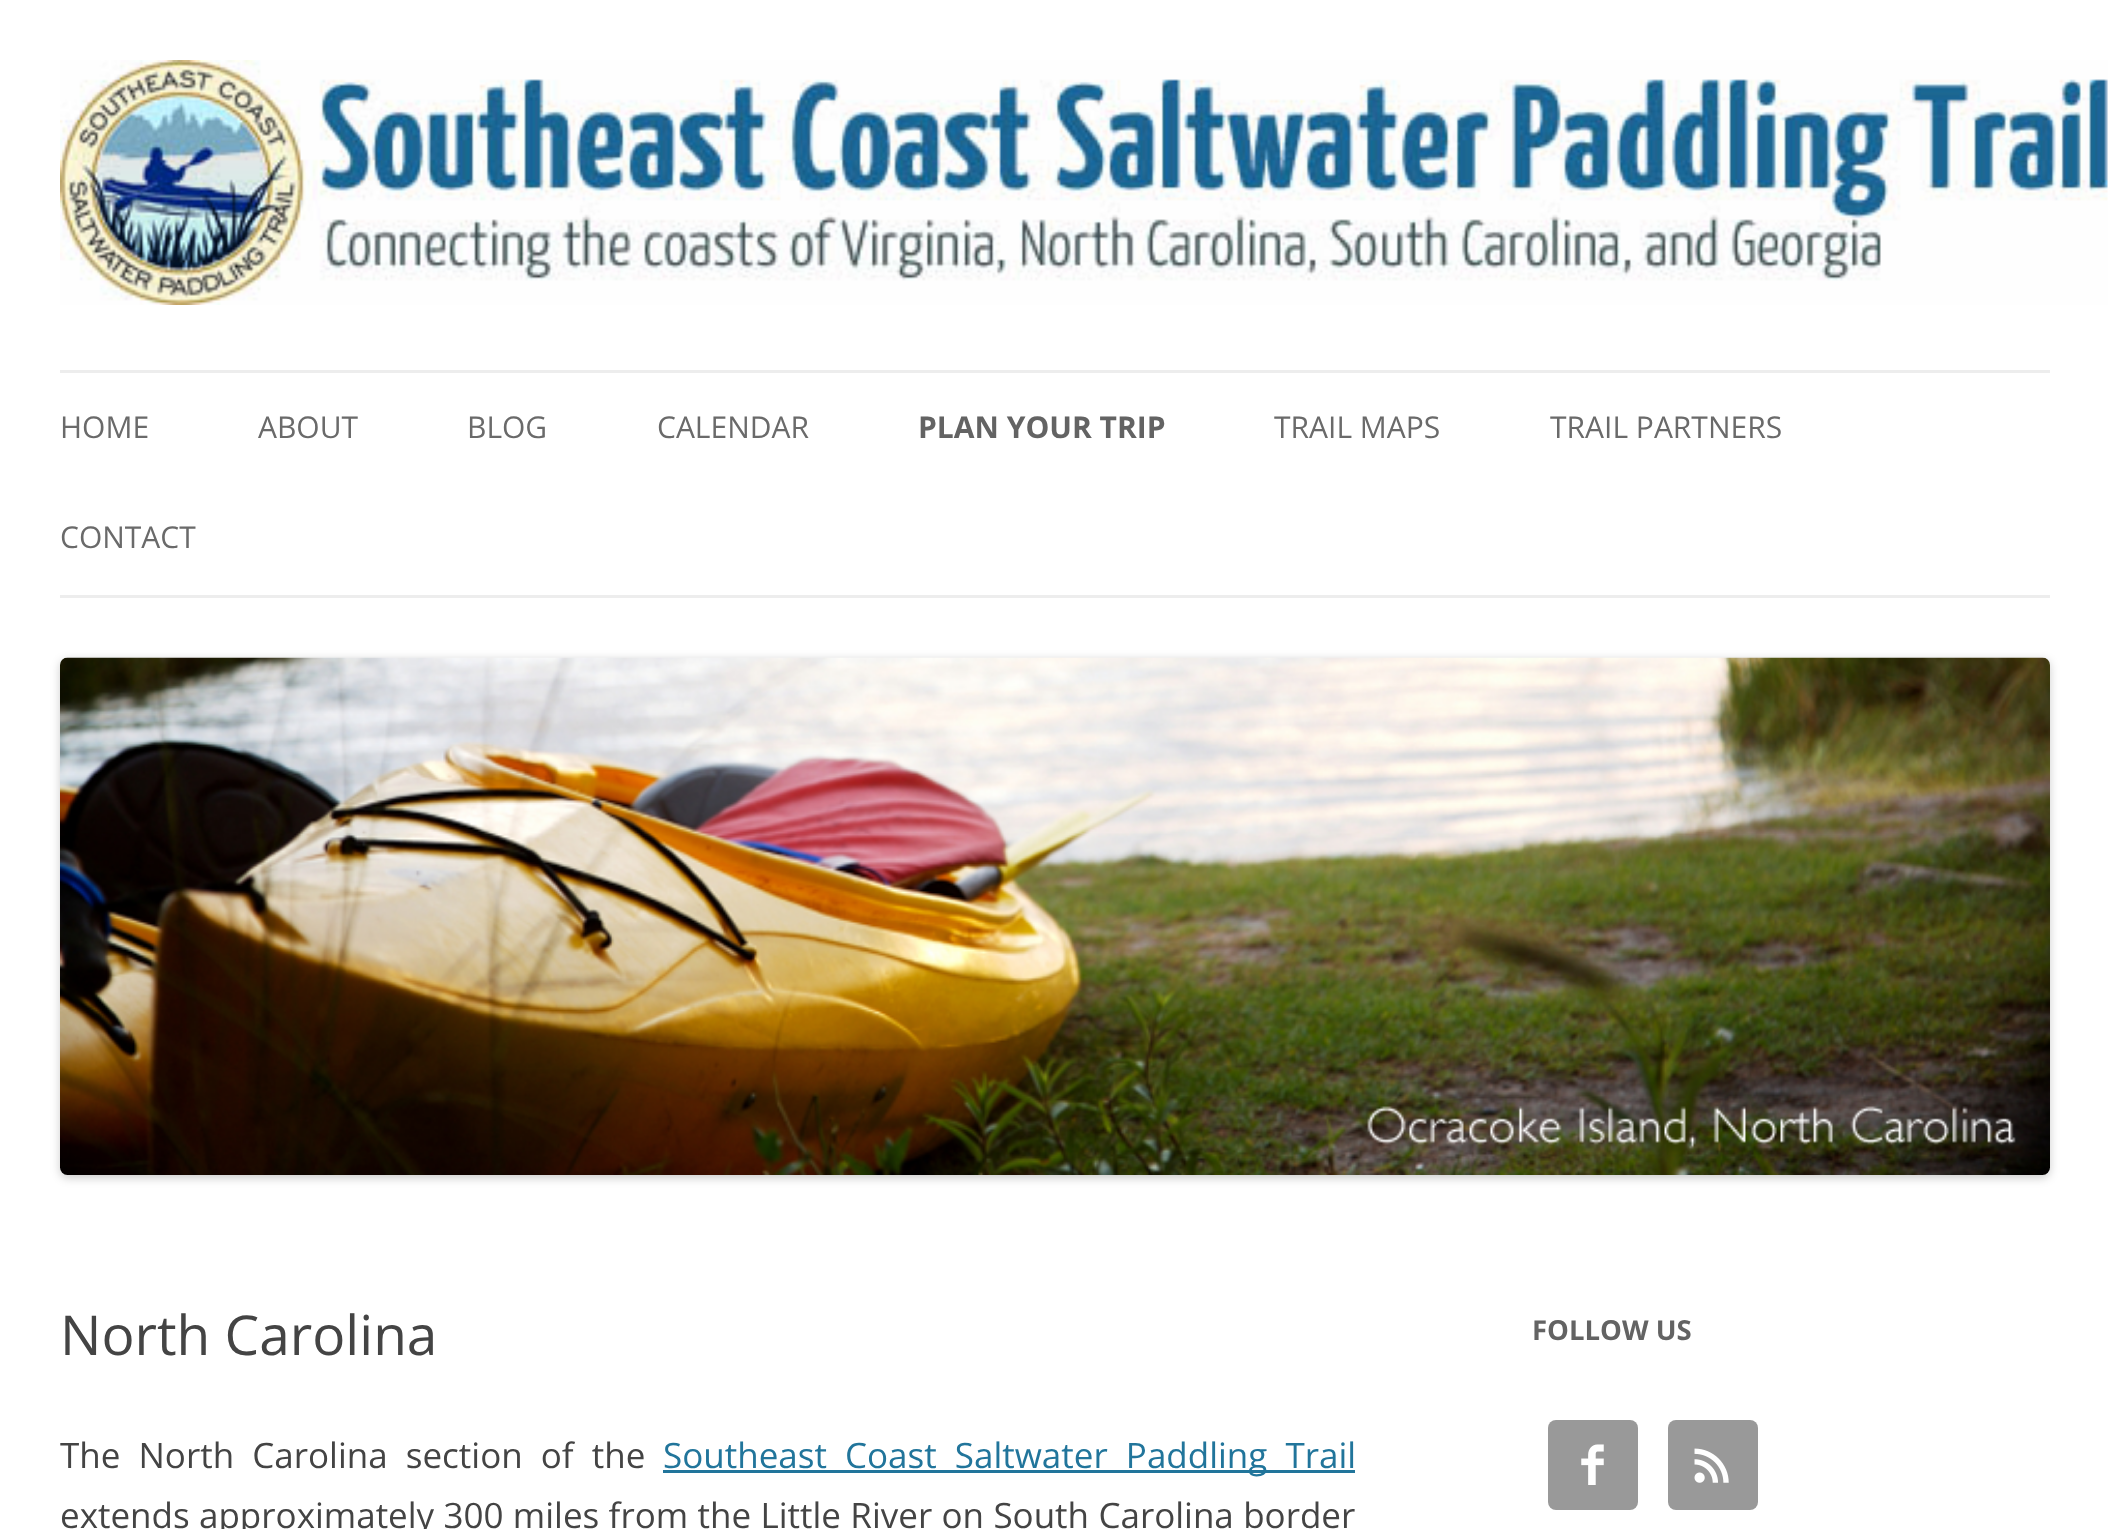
<!DOCTYPE html>
<meta charset="utf-8">
<style>body { margin: 0 } canvas { display: block }</style>
<canvas id="canvas" width="2109" height="1529"></canvas>
<script type="module">
  const canvas = document.getElementById("canvas");
  const g = canvas.getContext("2d");
  g.miterLimit = 4;
  g.fontKerning = "normal";
  function drawText(s, x, y, [font, color]) {
    g.font = font;
    g.fillStyle = color;
    g.fillText(s, x, y);
  }
  function fillBox(x, y, w, h, color) {
    g.fillStyle = color;
    g.fillRect(x, y, w, h);
  }
  function fillRounded(x, y, w, h, r, color) {
    g.fillStyle = color;
    g.beginPath();
    g.roundRect(x, y, w, h, r);
    g.fill();
  }
  async function drawPicture(src, x, y, w, h) {
    const img = new Image();
    img.src = src;
    await img.decode();
    g.drawImage(img, x, y, w, h);
  }

  const s1 = ["30px Open Sans", "#6A6A6A"];
  const s2 = ["bold 30px Open Sans", "#636363"];
  const s3 = ["55px Open Sans", "#444444"];
  const s4 = ["35px Open Sans", "#444444"];
  const s5 = ["35px Open Sans", "#21759B"];
  const s6 = ["bold 27.5px Open Sans", "#636363"];

  fillBox(0, 0, 2109, 1529, "#FFFFFF");
  await drawPicture("pic1.png", 60, 60, 2048, 245);
  fillBox(60, 370, 1990, 3, "#EDEDED");
  fillBox(60, 595, 1990, 3, "#EDEDED");
  drawText("HOME", 60, 438, s1);
  drawText("ABOUT", 258, 438, s1);
  drawText("BLOG", 467, 438, s1);
  drawText("CALENDAR", 657, 438, s1);
  drawText("PLAN YOUR TRIP", 918, 438, s2);
  drawText("TRAIL MAPS", 1274, 438, s1);
  drawText("TRAIL PARTNERS", 1550, 438, s1);
  drawText("CONTACT", 60, 548, s1);
  g.fillStyle = "rgba(0, 0, 0, 0.2)";
  g.filter = "blur(5px)";
  g.beginPath();
  g.roundRect(60, 660, 1990, 518, 8);
  g.fill();
  g.filter = "none";
  await drawPicture("pic2.png", 60, 657, 1990, 518);
  drawText("North Carolina", 60, 1355, s3);
  g.wordSpacing = "9px";
  drawText("The North Carolina section of the", 60, 1468, s4);
  fillBox(663, 1470, 692, 3, "#21759B");
  drawText("Southeast Coast Saltwater Paddling Trail", 663, 1468, s5);
  g.wordSpacing = "0.25px";
  drawText("extends approximately 300 miles from the Little River on South Carolina border", 60, 1528, s4);
  g.wordSpacing = "0px";
  drawText("FOLLOW US", 1532, 1340, s6);
  fillRounded(1548, 1420, 90, 90, 8, "#999999");
  await drawPicture("pic3.png", 1581, 1444, 23, 41);
  fillRounded(1668, 1420, 90, 90, 8, "#999999");
  await drawPicture("pic4.png", 1694, 1448, 35, 35);
</script>
